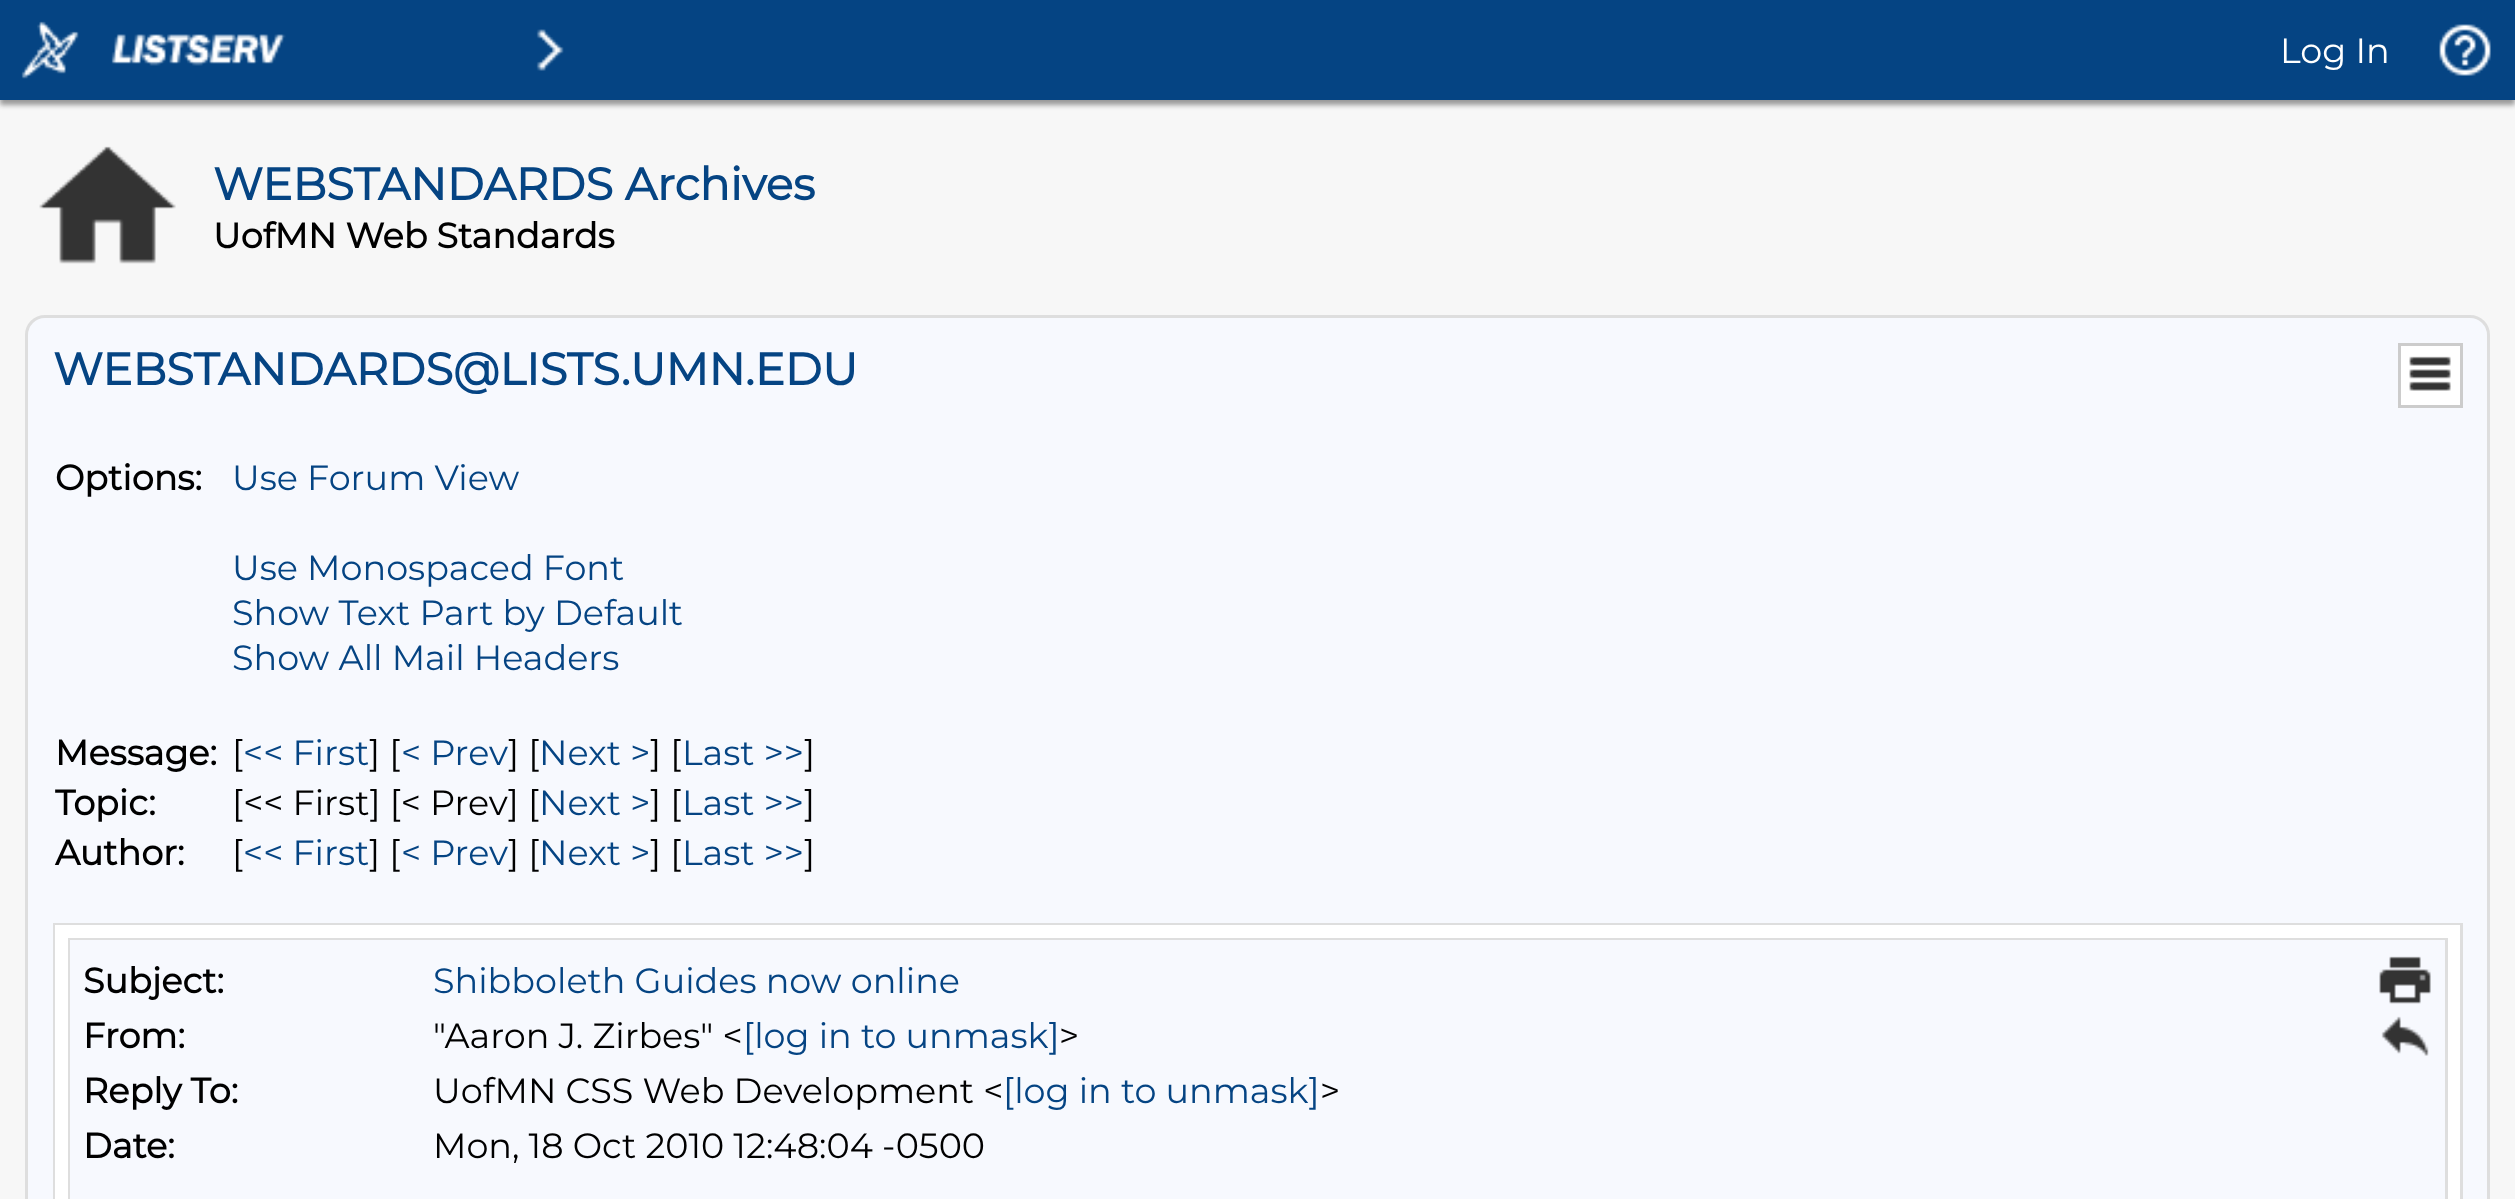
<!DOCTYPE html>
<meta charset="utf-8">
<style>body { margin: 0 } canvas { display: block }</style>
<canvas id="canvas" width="2515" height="1199"></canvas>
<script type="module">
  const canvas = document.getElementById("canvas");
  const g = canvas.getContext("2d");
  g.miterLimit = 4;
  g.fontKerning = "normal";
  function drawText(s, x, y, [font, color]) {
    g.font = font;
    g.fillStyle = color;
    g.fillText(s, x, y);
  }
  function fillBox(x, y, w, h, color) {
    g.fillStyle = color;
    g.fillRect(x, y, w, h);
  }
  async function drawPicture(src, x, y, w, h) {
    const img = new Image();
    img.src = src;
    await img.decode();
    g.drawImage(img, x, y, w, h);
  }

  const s1 = ["100 35px Montserrat", "#FFFFFF"];
  const s2 = ["bold 45px Montserrat", "#054483"];
  const s3 = ["bold 35px Montserrat", "#000000"];
  const s4 = ["100 35px Montserrat", "#054483"];
  const s5 = ["100 35px Montserrat", "#000000"];

  fillBox(0, 0, 2515, 1199, "#F7F7F7");
  g.fillStyle = "#999999";
  g.filter = "blur(2.5px)";
  g.beginPath();
  g.rect(0, 5, 2515, 100);
  g.fill();
  g.filter = "none";
  fillBox(0, 0, 2515, 100, "#054483");
  await drawPicture("pic1.png", 21, 21, 58, 58);
  await drawPicture("pic2.png", 111, 34, 175, 32);
  await drawPicture("pic3.png", 536, 29, 28, 42);
  drawText("Log In", 2280, 63, s1);
  await drawPicture("pic4.png", 2439, 24, 52, 52);
  await drawPicture("pic5.png", 39, 146, 137, 118);
  drawText("WEBSTANDARDS Archives", 213, 200, s2);
  drawText("UofMN Web Standards", 213, 248, s3);
  g.fillStyle = "#F7F9FE";
  g.beginPath();
  g.roundRect(26.5, 316.5, 2462, 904, 18.5);
  g.fill();
  g.strokeStyle = "#DEDEDE";
  g.lineWidth = 3;
  g.stroke();
  drawText("WEBSTANDARDS@LISTS.UMN.EDU", 53, 385, s2);
  g.fillStyle = "#FFFFFF";
  g.beginPath();
  g.rect(2399.5, 344.5, 62, 62);
  g.fill();
  g.strokeStyle = "#CCCCCC";
  g.stroke();
  await drawPicture("pic6.png", 2409, 356, 42, 35);
  drawText("Options:", 55, 490, s3);
  drawText("Use Forum View", 232, 490, s4);
  drawText("Use Monospaced Font", 232, 580, s4);
  drawText("Show Text Part by Default", 232, 625, s4);
  drawText("Show All Mail Headers", 232, 670, s4);
  drawText("Message:", 55, 765, s3);
  drawText("[", 232, 765, s5);
  drawText("<< First", 243, 765, s4);
  drawText("] [", 369, 765, s5);
  drawText("< Prev", 401, 765, s4);
  drawText("] [", 508, 765, s5);
  drawText("Next >", 539, 765, s4);
  drawText("] [", 650, 765, s5);
  drawText("Last >>", 682, 765, s4);
  drawText("]", 804, 765, s5);
  drawText("Topic:", 55, 815, s3);
  drawText("[<< First] [< Prev] [", 232, 815, s5);
  drawText("Next >", 539, 815, s4);
  drawText("] [", 650, 815, s5);
  drawText("Last >>", 682, 815, s4);
  drawText("]", 804, 815, s5);
  drawText("Author:", 55, 865, s3);
  drawText("[", 232, 865, s5);
  drawText("<< First", 243, 865, s4);
  drawText("] [", 369, 865, s5);
  drawText("< Prev", 401, 865, s4);
  drawText("] [", 508, 865, s5);
  drawText("Next >", 539, 865, s4);
  drawText("] [", 650, 865, s5);
  drawText("Last >>", 682, 865, s4);
  drawText("]", 804, 865, s5);
  g.strokeStyle = "#DEDEDE";
  g.strokeRect(54.5, 924.5, 2407, 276);
  fillBox(55, 925, 2405, 274, "#FFFFFF");
  g.strokeRect(69.5, 939.5, 2377, 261);
  fillBox(70, 940, 2375, 259, "#F7F9FE");
  drawText("Subject:", 83, 993, s3);
  drawText("Shibboleth Guides now online", 433, 993, s4);
  drawText("From:", 83, 1048, s3);
  drawText("\"Aaron J. Zirbes\" <", 433, 1048, s5);
  drawText("[log in to unmask]", 743, 1048, s4);
  drawText(">", 1059, 1048, s5);
  drawText("Reply To:", 83, 1103, s3);
  drawText("UofMN CSS Web Development <", 433, 1103, s5);
  drawText("[log in to unmask]", 1003, 1103, s4);
  drawText(">", 1320, 1103, s5);
  drawText("Date:", 83, 1158, s3);
  drawText("Mon, 18 Oct 2010 12:48:04 -0500", 433, 1158, s5);
  await drawPicture("pic7.png", 2379, 956, 52, 48);
  await drawPicture("pic8.png", 2381, 1016, 48, 40);
</script>
